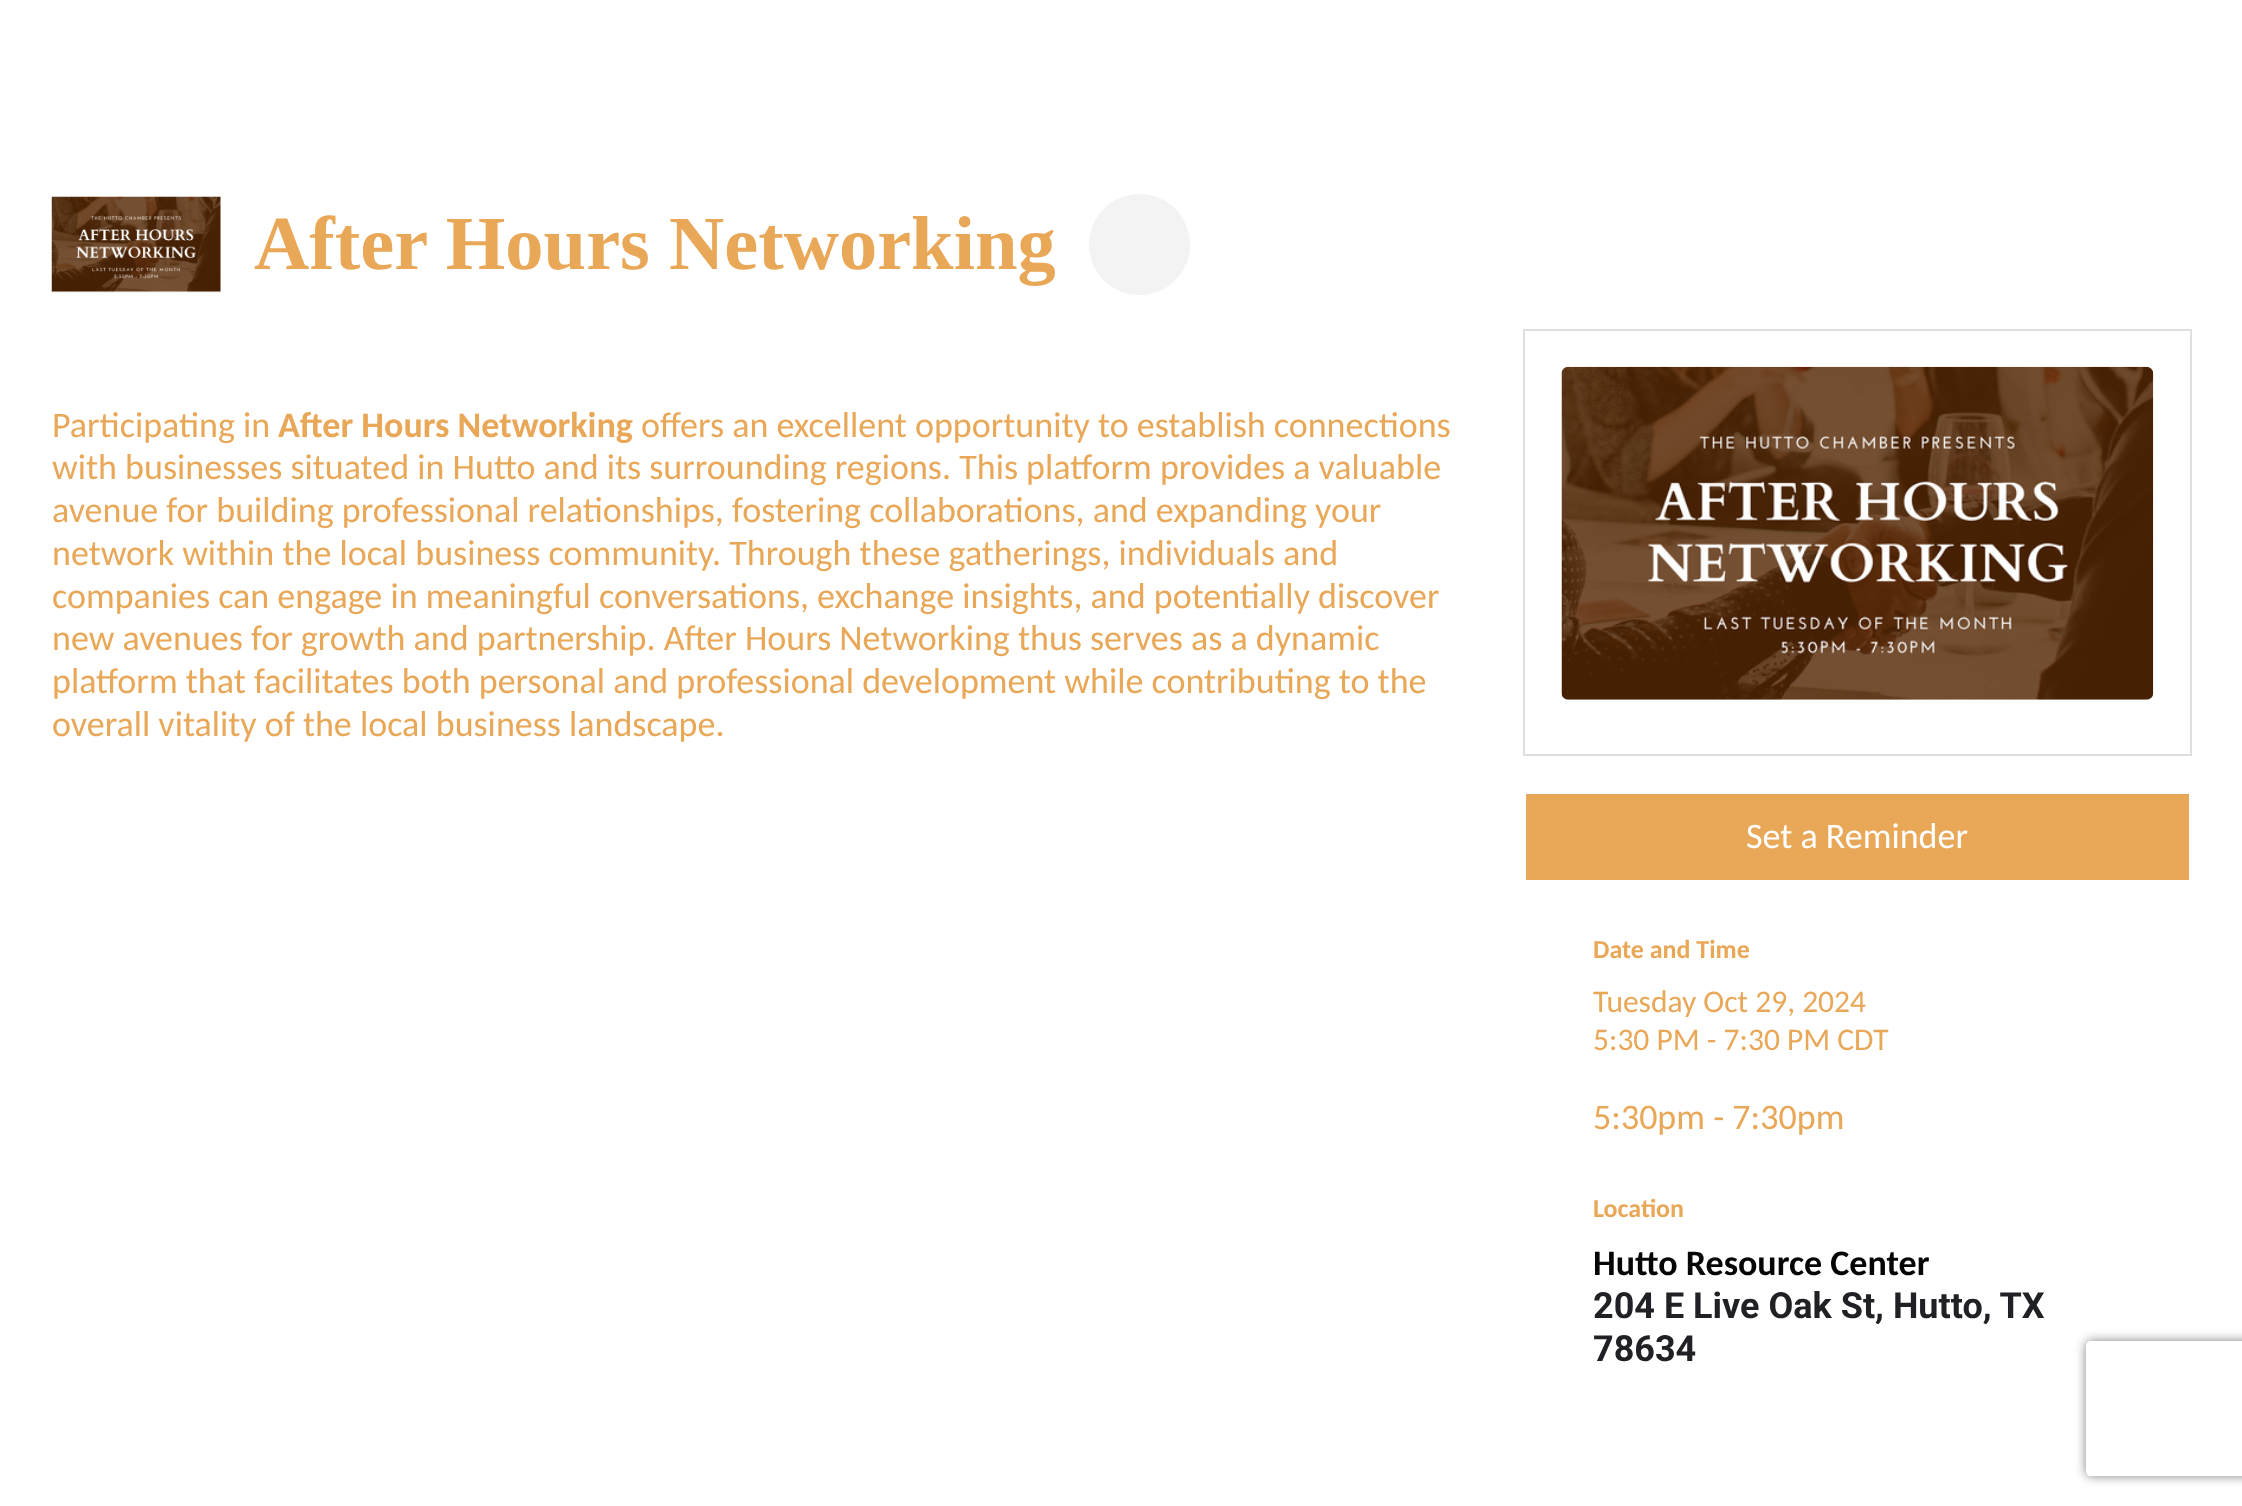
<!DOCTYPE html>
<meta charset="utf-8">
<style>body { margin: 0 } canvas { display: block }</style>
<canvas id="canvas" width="2242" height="1506"></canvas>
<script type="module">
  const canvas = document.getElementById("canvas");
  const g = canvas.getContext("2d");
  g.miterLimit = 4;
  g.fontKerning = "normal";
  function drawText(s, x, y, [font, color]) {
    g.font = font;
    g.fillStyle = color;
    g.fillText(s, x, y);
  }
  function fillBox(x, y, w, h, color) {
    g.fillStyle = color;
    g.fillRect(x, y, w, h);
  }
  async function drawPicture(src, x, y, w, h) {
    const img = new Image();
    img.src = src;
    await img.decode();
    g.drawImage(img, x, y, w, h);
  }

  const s1 = ["bold 76.5px Liberation Serif", "#E9A758"];
  const s2 = ["36px Carlito", "#E9A758"];
  const s3 = ["bold 36px Carlito", "#E9A758"];
  const s4 = ["36px Carlito", "#FFFFFF"];
  const s5 = ["bold 26px Carlito", "#E9A758"];
  const s6 = ["31.5px Carlito", "#E9A758"];
  const s7 = ["bold 36px Carlito", "#050505"];
  const s8 = ["bold 36px Roboto", "#202124"];

  fillBox(0, 0, 2242, 1506, "#FFFFFF");
  await drawPicture("pic1.png", 51, 196, 170, 97);
  drawText("After Hours Networking", 254, 269, s1);
  g.fillStyle = "#F3F3F3";
  g.beginPath();
  g.arc(1139.5, 244.5, 50.5, 0, Math.PI * 2);
  g.fill();
  drawText("Participating in", 52, 437, s2);
  drawText("After Hours Networking", 278, 437, s3);
  drawText("offers an excellent opportunity to establish connections", 641, 437, s2);
  drawText("with businesses situated in Hutto and its surrounding regions. This platform provides a valuable", 52, 479, s2);
  drawText("avenue for building professional relationships, fostering collaborations, and expanding your", 52, 522, s2);
  drawText("network within the local business community. Through these gatherings, individuals and", 52, 565, s2);
  drawText("companies can engage in meaningful conversations, exchange insights, and potentially discover", 52, 608, s2);
  drawText("new avenues for growth and partnership. After Hours Networking thus serves as a dynamic", 52, 650, s2);
  drawText("platform that facilitates both personal and professional development while contributing to the", 52, 693, s2);
  drawText("overall vitality of the local business landscape.", 52, 736, s2);
  g.strokeStyle = "#DFDFDF";
  g.lineWidth = 2;
  g.strokeRect(1524, 330, 667, 425);
  await drawPicture("pic2.png", 1561, 366, 593, 334);
  fillBox(1526, 794, 663, 86, "#E9A758");
  drawText("Set a Reminder", 1746, 848, s4);
  drawText("Date and Time", 1593, 958, s5);
  drawText("Tuesday Oct 29, 2024", 1593, 1012, s6);
  drawText("5:30 PM - 7:30 PM CDT", 1593, 1050, s6);
  drawText("5:30pm - 7:30pm", 1593, 1129, s2);
  drawText("Location", 1593, 1217, s5);
  drawText("Hutto Resource Center", 1593, 1275, s7);
  drawText("204 E Live Oak St, Hutto, TX", 1593, 1318, s8);
  drawText("78634", 1593, 1361, s8);
  g.save();
  g.beginPath();
  g.moveTo(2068, 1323);
  g.lineTo(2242, 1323);
  g.lineTo(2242, 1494);
  g.lineTo(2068, 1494);
  g.closePath();
  g.moveTo(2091, 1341);
  g.lineTo(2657, 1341);
  g.bezierCurveTo(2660, 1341, 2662, 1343, 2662, 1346);
  g.lineTo(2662, 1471);
  g.bezierCurveTo(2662, 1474, 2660, 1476, 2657, 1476);
  g.lineTo(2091, 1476);
  g.bezierCurveTo(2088, 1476, 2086, 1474, 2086, 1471);
  g.lineTo(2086, 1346);
  g.bezierCurveTo(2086, 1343, 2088, 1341, 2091, 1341);
  g.closePath();
  g.clip("evenodd");
  g.fillStyle = "#808080";
  g.filter = "blur(5.5px)";
  g.beginPath();
  g.roundRect(2086, 1341, 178, 135, 5);
  g.fill();
  g.filter = "none";
  g.restore();
</script>
